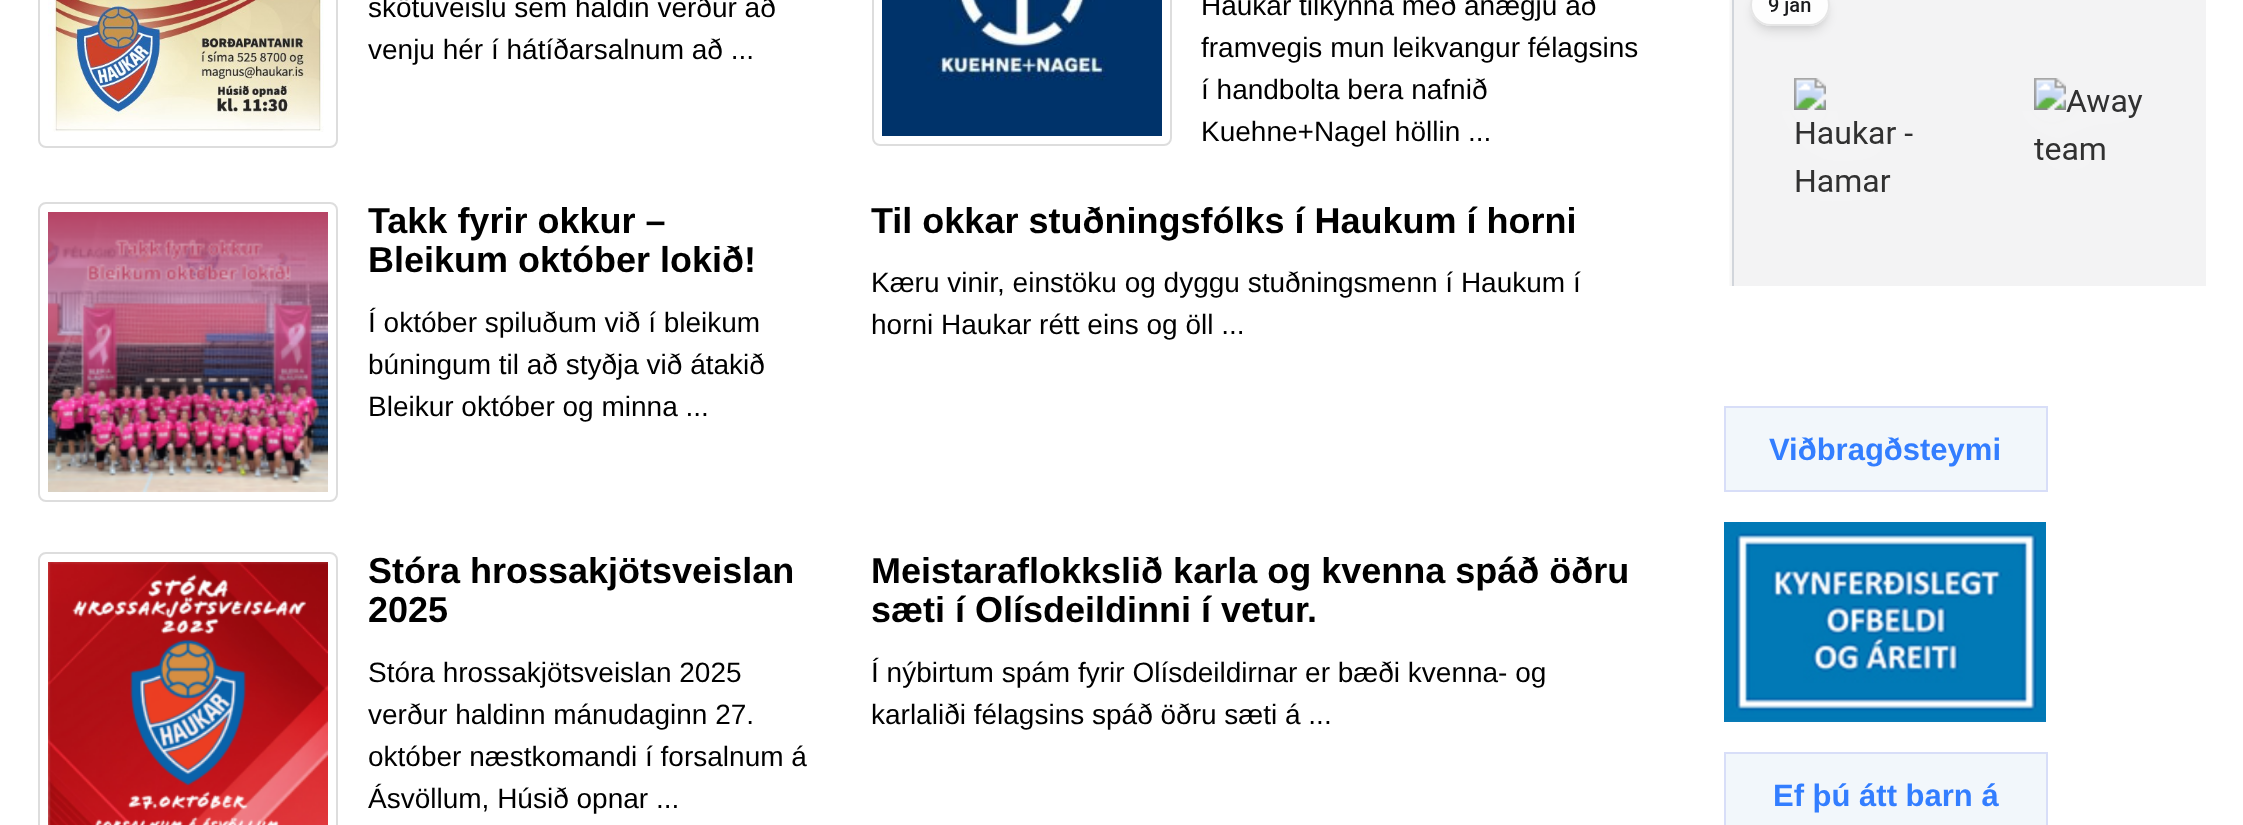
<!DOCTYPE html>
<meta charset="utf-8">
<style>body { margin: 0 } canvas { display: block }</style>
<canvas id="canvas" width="2243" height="825"></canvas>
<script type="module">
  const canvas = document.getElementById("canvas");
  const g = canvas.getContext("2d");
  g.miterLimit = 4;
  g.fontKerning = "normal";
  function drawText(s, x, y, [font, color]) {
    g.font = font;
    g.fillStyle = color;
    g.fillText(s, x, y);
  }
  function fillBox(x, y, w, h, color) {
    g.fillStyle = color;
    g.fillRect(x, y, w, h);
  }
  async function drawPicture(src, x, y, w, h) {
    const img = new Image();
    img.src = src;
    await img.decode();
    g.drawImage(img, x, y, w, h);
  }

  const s1 = ["28px Liberation Sans", "#000000"];
  const s2 = ["bold 36px Liberation Sans", "#000000"];
  const s3 = ["bold 31px Liberation Sans", "#337EFF"];

  fillBox(0, 0, 2243, 825, "#FFFFFF");
  g.beginPath();
  g.roundRect(39, -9, 298, 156, 7);
  g.strokeStyle = "#DDDDDD";
  g.lineWidth = 2;
  g.stroke();
  await drawPicture("pic1.png", 48, 0, 276, 132);
  drawText("skötuveislu sem haldin verður að", 368, 17, s1);
  drawText("venju hér í hátíðarsalnum að ...", 368, 59, s1);
  g.beginPath();
  g.roundRect(873, -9, 298, 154, 7);
  g.stroke();
  await drawPicture("pic2.png", 882, 0, 280, 136);
  drawText("Haukar tilkynna með ánægju að", 1201, 15, s1);
  drawText("framvegis mun leikvangur félagsins", 1201, 57, s1);
  drawText("í handbolta bera nafnið", 1201, 99, s1);
  drawText("Kuehne+Nagel höllin ...", 1201, 141, s1);
  g.beginPath();
  g.roundRect(39, 203, 298, 298, 7);
  g.stroke();
  await drawPicture("pic3.png", 48, 212, 280, 280);
  drawText("Takk fyrir okkur –", 368, 233, s2);
  drawText("Bleikum október lokið!", 368, 272, s2);
  drawText("Í október spiluðum við í bleikum", 368, 332, s1);
  drawText("búningum til að styðja við átakið", 368, 374, s1);
  drawText("Bleikur október og minna ...", 368, 416, s1);
  drawText("Til okkar stuðningsfólks í Haukum í horni", 871, 233, s2);
  drawText("Kæru vinir, einstöku og dyggu stuðningsmenn í Haukum í", 871, 292, s1);
  drawText("horni Haukar rétt eins og öll ...", 871, 334, s1);
  g.beginPath();
  g.roundRect(39, 553, 298, 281, 7);
  g.stroke();
  await drawPicture("pic4.png", 48, 562, 280, 263);
  drawText("Stóra hrossakjötsveislan", 368, 583, s2);
  drawText("2025", 368, 622, s2);
  drawText("Stóra hrossakjötsveislan 2025", 368, 682, s1);
  drawText("verður haldinn mánudaginn 27.", 368, 724, s1);
  drawText("október næstkomandi í forsalnum á", 368, 766, s1);
  drawText("Ásvöllum, Húsið opnar ...", 368, 808, s1);
  drawText("Meistaraflokkslið karla og kvenna spáð öðru", 871, 583, s2);
  drawText("sæti í Olísdeildinni í vetur.", 871, 622, s2);
  drawText("Í nýbirtum spám fyrir Olísdeildirnar er bæði kvenna- og", 871, 682, s1);
  drawText("karlaliði félagsins spáð öðru sæti á ...", 871, 724, s1);
  await drawPicture("pic5.png", 1729, 0, 477, 286);
  g.fillStyle = "#F2F7FB";
  g.beginPath();
  g.rect(1725, 407, 322, 84);
  g.fill();
  g.strokeStyle = "#D8DEF8";
  g.stroke();
  drawText("Viðbragðsteymi", 1769, 460, s3);
  await drawPicture("pic6.png", 1724, 522, 322, 200);
  g.fillStyle = "#F2F7FB";
  g.beginPath();
  g.rect(1725, 753, 322, 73);
  g.fill();
  g.stroke();
  drawText("Ef þú átt barn á", 1773, 806, s3);
</script>
